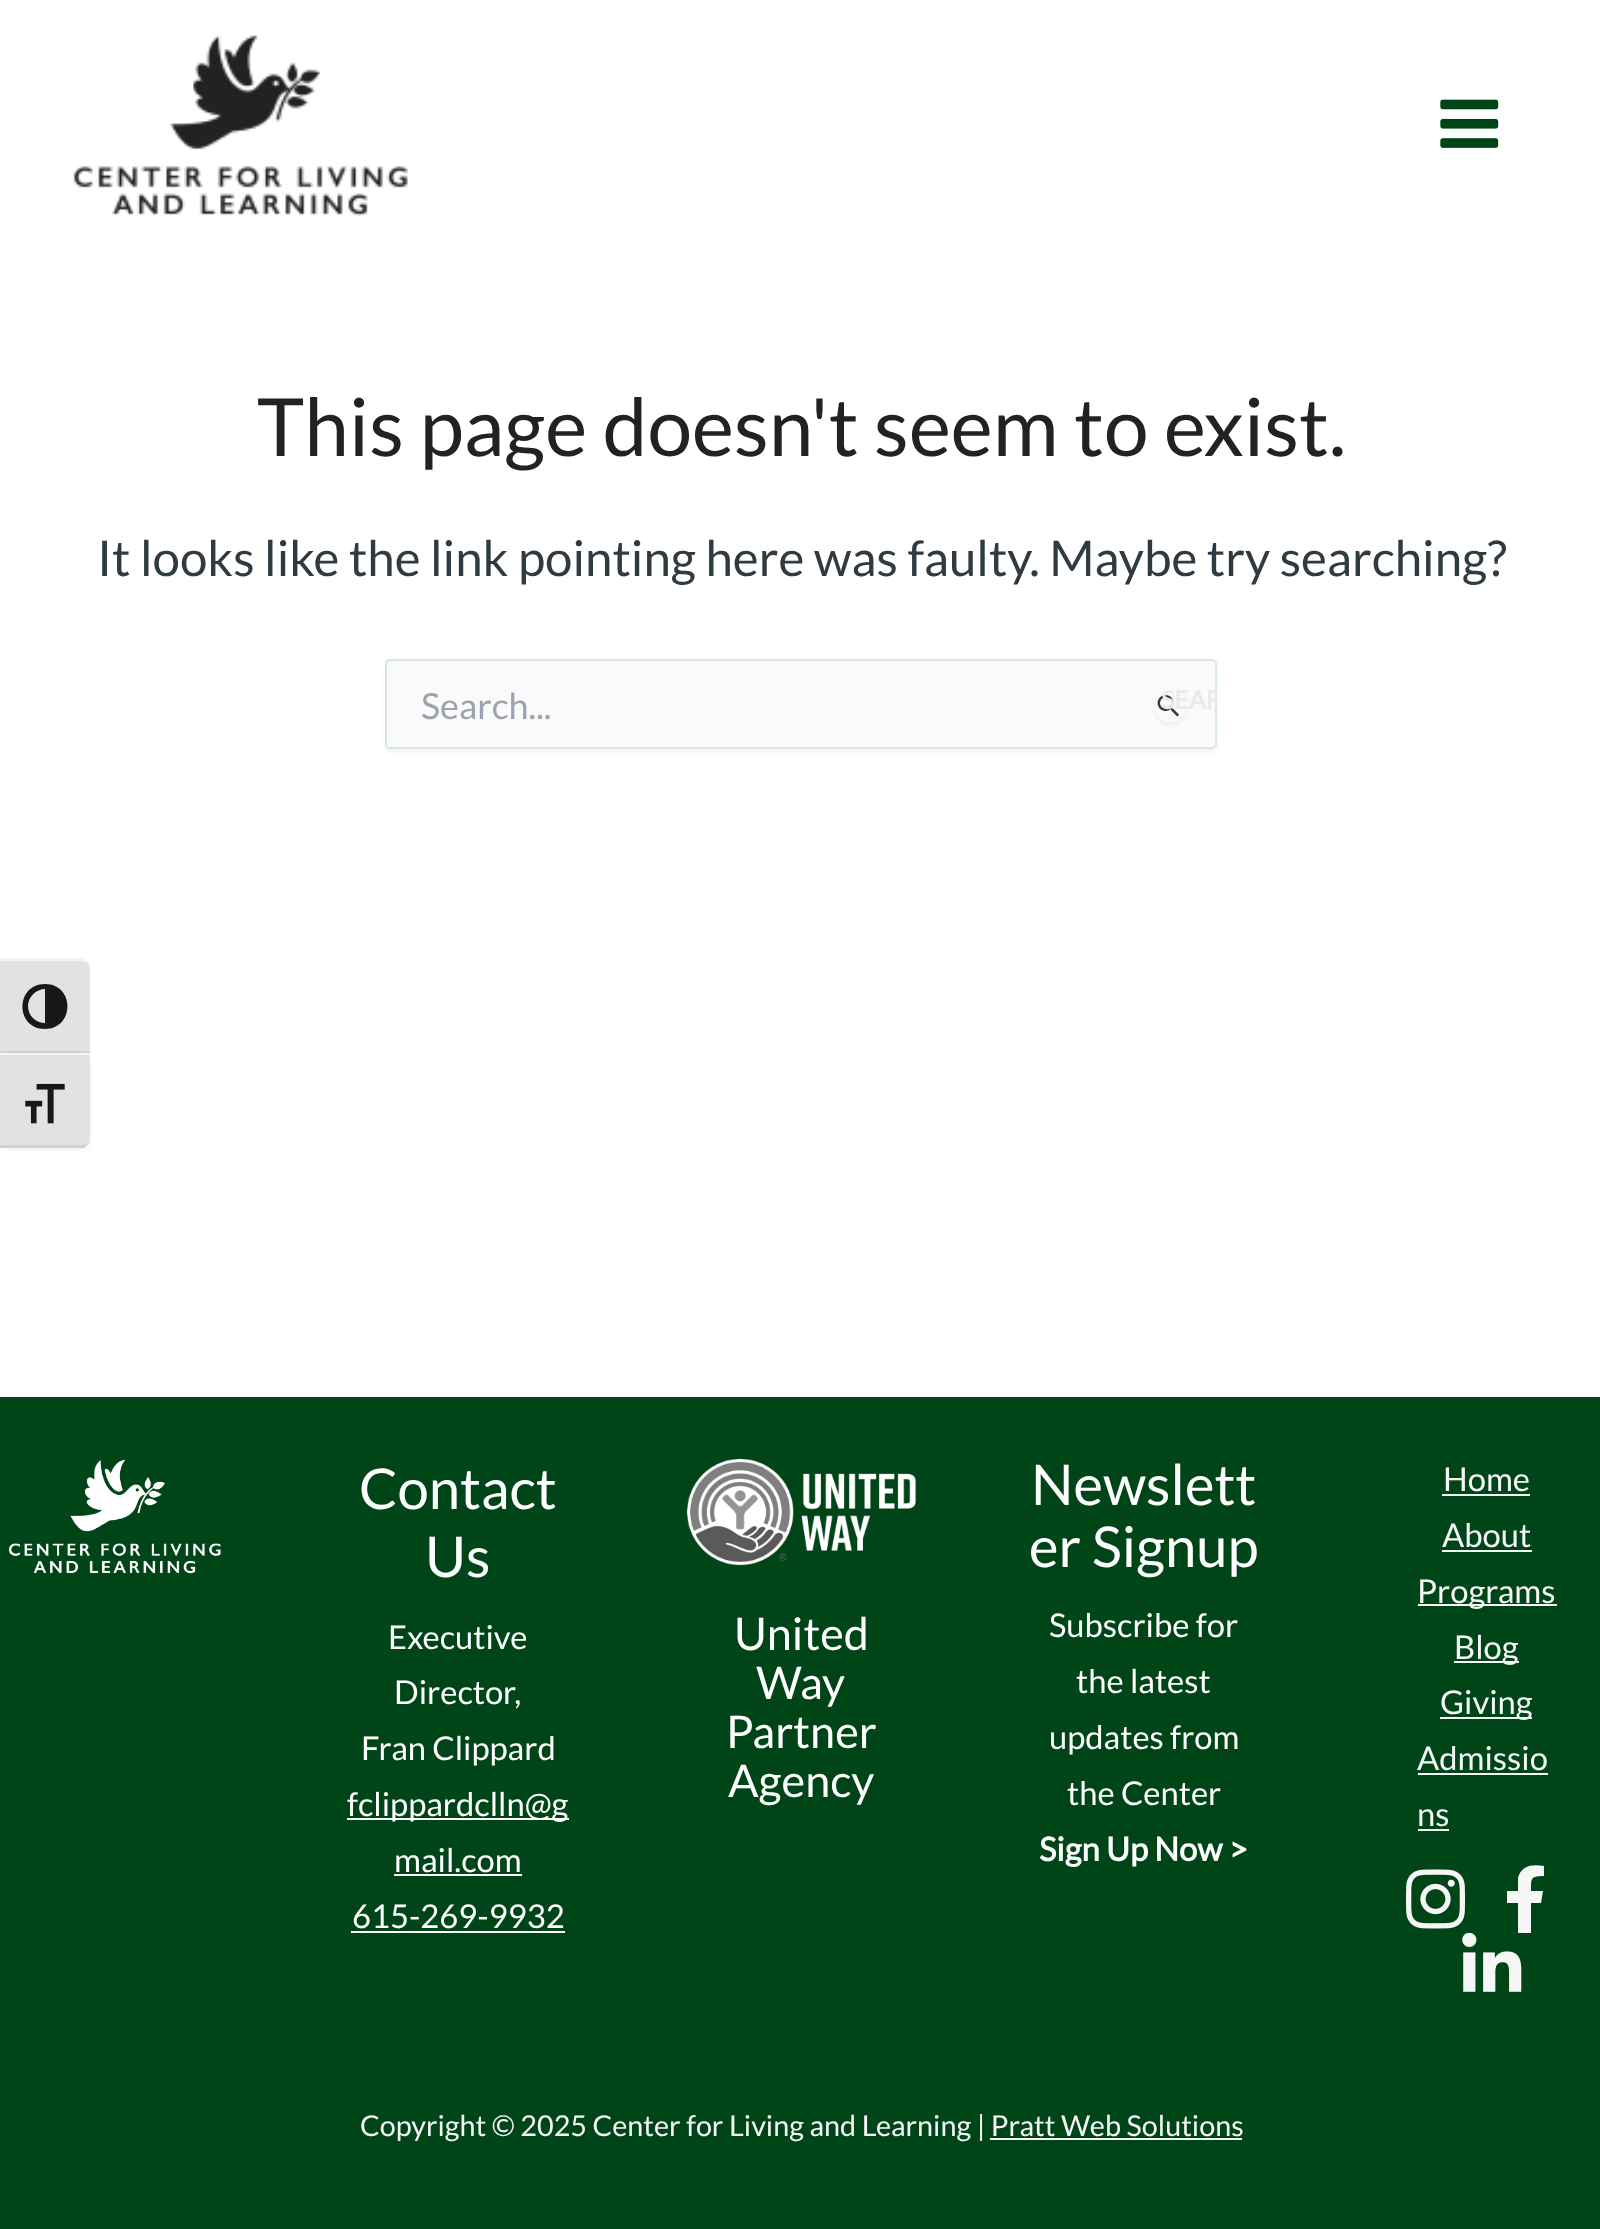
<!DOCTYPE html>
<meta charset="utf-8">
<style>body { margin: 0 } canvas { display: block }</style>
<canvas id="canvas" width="1600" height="2229"></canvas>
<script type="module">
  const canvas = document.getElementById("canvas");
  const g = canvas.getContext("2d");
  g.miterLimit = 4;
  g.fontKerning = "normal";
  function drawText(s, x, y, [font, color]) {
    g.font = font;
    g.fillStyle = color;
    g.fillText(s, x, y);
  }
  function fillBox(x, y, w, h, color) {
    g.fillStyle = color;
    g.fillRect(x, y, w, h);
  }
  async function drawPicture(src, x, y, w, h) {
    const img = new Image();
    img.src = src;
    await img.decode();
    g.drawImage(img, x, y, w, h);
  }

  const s1 = ["80.1px Lato", "#222222"];
  const s2 = ["49.25px Lato", "#2F3B40"];
  const s3 = ["36px Lato", "#9CA3AF"];
  const s4 = ["bold 25px Lato", "#E8E9E8"];
  const s5 = ["56.25px Lato", "#FFFFFF"];
  const s6 = ["32.75px Lato", "#FFFFFF"];
  const s7 = ["45px Lato", "#FFFFFF"];
  const s8 = ["bold 32.75px Lato", "#FFFFFF"];
  const s9 = ["32.75px Lato", "#F6F6F6"];
  const s10 = ["28.75px Lato", "#F6F6F6"];

  fillBox(0, 0, 1600, 2229, "#FFFFFF");
  g.fillStyle = "#E2E2E2";
  g.beginPath();
  g.roundRect(0, 959, 90, 94, [0, 9, 0, 0]);
  g.fill();
  g.fillStyle = "#F5F5F5";
  g.beginPath();
  g.moveTo(0, 961);
  g.lineTo(81, 961);
  g.bezierCurveTo(86, 961, 90, 964, 90, 968);
  g.bezierCurveTo(90, 964, 87, 960, 84, 958);
  g.lineTo(0, 958);
  g.closePath();
  g.fill();
  fillBox(0, 1051, 90, 2, "#D2D2D2");
  g.fillStyle = "#181818";
  g.beginPath();
  g.moveTo(45, 984);
  g.bezierCurveTo(15, 984, 15, 1029, 45, 1029);
  g.bezierCurveTo(75, 1029, 75, 984, 45, 984);
  g.closePath();
  g.moveTo(28, 1006);
  g.bezierCurveTo(28, 997, 36, 989, 45, 989);
  g.lineTo(45, 1023);
  g.bezierCurveTo(36, 1023, 28, 1016, 28, 1006);
  g.closePath();
  g.fill();
  g.fillStyle = "rgba(0, 0, 0, 0.05)";
  g.filter = "blur(2px)";
  g.beginPath();
  g.roundRect(0, 1055, 90, 95, 9);
  g.fill();
  g.filter = "none";
  g.fillStyle = "#E2E2E2";
  g.beginPath();
  g.roundRect(0, 1053, 90, 95, [0, 0, 9, 0]);
  g.fill();
  fillBox(0, 1053, 90, 2, "#F5F5F5");
  g.fillStyle = "#D2D2D2";
  g.beginPath();
  g.moveTo(84, 1148);
  g.bezierCurveTo(87, 1146, 90, 1142, 90, 1138);
  g.bezierCurveTo(90, 1142, 86, 1145, 81, 1145);
  g.lineTo(0, 1145);
  g.lineTo(0, 1148);
  g.closePath();
  g.fill();
  await drawPicture("pic1.png", 25, 1083, 40, 41);
  await drawPicture("pic2.png", 73, 35, 335, 181);
  await drawPicture("pic3.png", 1440, 99, 59, 49);
  drawText("This page doesn't seem to exist.", 257, 456, s1);
  drawText("It looks like the link pointing here was faulty. Maybe try searching?", 97, 576, s2);
  g.fillStyle = "rgba(0, 0, 0, 0.05)";
  g.filter = "blur(2px)";
  g.beginPath();
  g.roundRect(385, 662, 832, 90, 5);
  g.fill();
  g.filter = "none";
  g.fillStyle = "#FAFAFA";
  g.beginPath();
  g.roundRect(386, 660, 830, 88, 4);
  g.fill();
  g.strokeStyle = "#D5EAD8";
  g.lineWidth = 2;
  g.stroke();
  drawText("Search...", 421, 719, s3);
  g.save();
  g.beginPath();
  g.moveTo(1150, 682);
  g.lineTo(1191, 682);
  g.lineTo(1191, 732);
  g.lineTo(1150, 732);
  g.closePath();
  g.moveTo(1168, 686);
  g.lineTo(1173, 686);
  g.bezierCurveTo(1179, 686, 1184, 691, 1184, 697);
  g.lineTo(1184, 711);
  g.bezierCurveTo(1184, 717, 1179, 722, 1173, 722);
  g.lineTo(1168, 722);
  g.bezierCurveTo(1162, 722, 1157, 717, 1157, 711);
  g.lineTo(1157, 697);
  g.bezierCurveTo(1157, 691, 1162, 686, 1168, 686);
  g.closePath();
  g.clip("evenodd");
  g.fillStyle = "rgba(0, 0, 0, 0.05)";
  g.filter = "blur(2px)";
  g.beginPath();
  g.roundRect(1157, 689, 27, 36, 11);
  g.fill();
  g.filter = "none";
  g.restore();
  await drawPicture("pic4.png", 1157, 695, 22, 22);
  g.save();
  g.beginPath();
  g.roundRect(1116, 659, 101, 84, 5);
  g.clip();
  drawText("SEAR", 1161, 709, s4);
  g.restore();
  fillBox(0, 1397, 1600, 832, "#004518");
  await drawPicture("pic5.png", 8, 1459, 213, 115);
  drawText("Contact", 359, 1509, s5);
  drawText("Us", 425, 1577, s5);
  drawText("Executive", 388, 1649, s6);
  drawText("Director,", 394, 1704, s6);
  drawText("Fran Clippard", 361, 1760, s6);
  fillBox(347, 1818, 222, 2, "#FFFFFF");
  drawText("fclippardclln@g", 347, 1816, s6);
  drawText("mail.com", 394, 1872, s6);
  fillBox(394, 1874, 128, 2, "#FFFFFF");
  drawText("615-269-9932", 352, 1928, s6);
  fillBox(351, 1931, 214, 2, "#FFFFFF");
  await drawPicture("pic6.png", 687, 1458, 229, 108);
  drawText("United", 734, 1650, s7);
  drawText("Way", 756, 1699, s7);
  drawText("Partner", 726, 1748, s7);
  drawText("Agency", 728, 1797, s7);
  drawText("Newslett", 1031, 1505, s5);
  drawText("er Signup", 1029, 1567, s5);
  drawText("Subscribe for", 1049, 1637, s6);
  drawText("the latest", 1076, 1693, s6);
  drawText("updates from", 1049, 1749, s6);
  drawText("the Center", 1067, 1805, s6);
  drawText("Sign Up Now >", 1039, 1861, s8);
  drawText("Home", 1443, 1491, s9);
  fillBox(1442, 1494, 88, 2, "#F6F6F6");
  drawText("About", 1442, 1547, s9);
  fillBox(1442, 1550, 90, 2, "#F6F6F6");
  fillBox(1418, 1604, 139, 2, "#F6F6F6");
  drawText("Programs", 1417, 1603, s9);
  fillBox(1454, 1661, 65, 2, "#F6F6F6");
  drawText("Blog", 1454, 1659, s9);
  fillBox(1440, 1717, 92, 2, "#F6F6F6");
  drawText("Giving", 1440, 1714, s9);
  drawText("Admissio", 1417, 1770, s9);
  fillBox(1418, 1773, 130, 2, "#F6F6F6");
  drawText("ns", 1417, 1826, s9);
  fillBox(1418, 1829, 31, 2, "#F6F6F6");
  await drawPicture("pic7.png", 1405, 1869, 61, 60);
  g.beginPath();
  g.moveTo(1541, 1903);
  g.lineTo(1543, 1891);
  g.lineTo(1531, 1891);
  g.bezierCurveTo(1531, 1879, 1530, 1876, 1544, 1876);
  g.lineTo(1544, 1866);
  g.bezierCurveTo(1533, 1864, 1521, 1865, 1518, 1878);
  g.lineTo(1518, 1891);
  g.lineTo(1507, 1891);
  g.lineTo(1507, 1903);
  g.lineTo(1518, 1903);
  g.lineTo(1518, 1933);
  g.lineTo(1531, 1933);
  g.lineTo(1531, 1903);
  g.closePath();
  g.fill();
  await drawPicture("pic8.png", 1462, 1933, 60, 59);
  drawText("Copyright © 2025 Center for Living and Learning | Pratt Web Solutions", 360, 2136, s10);
  fillBox(990, 2138, 252, 2, "#F6F6F6");
</script>
